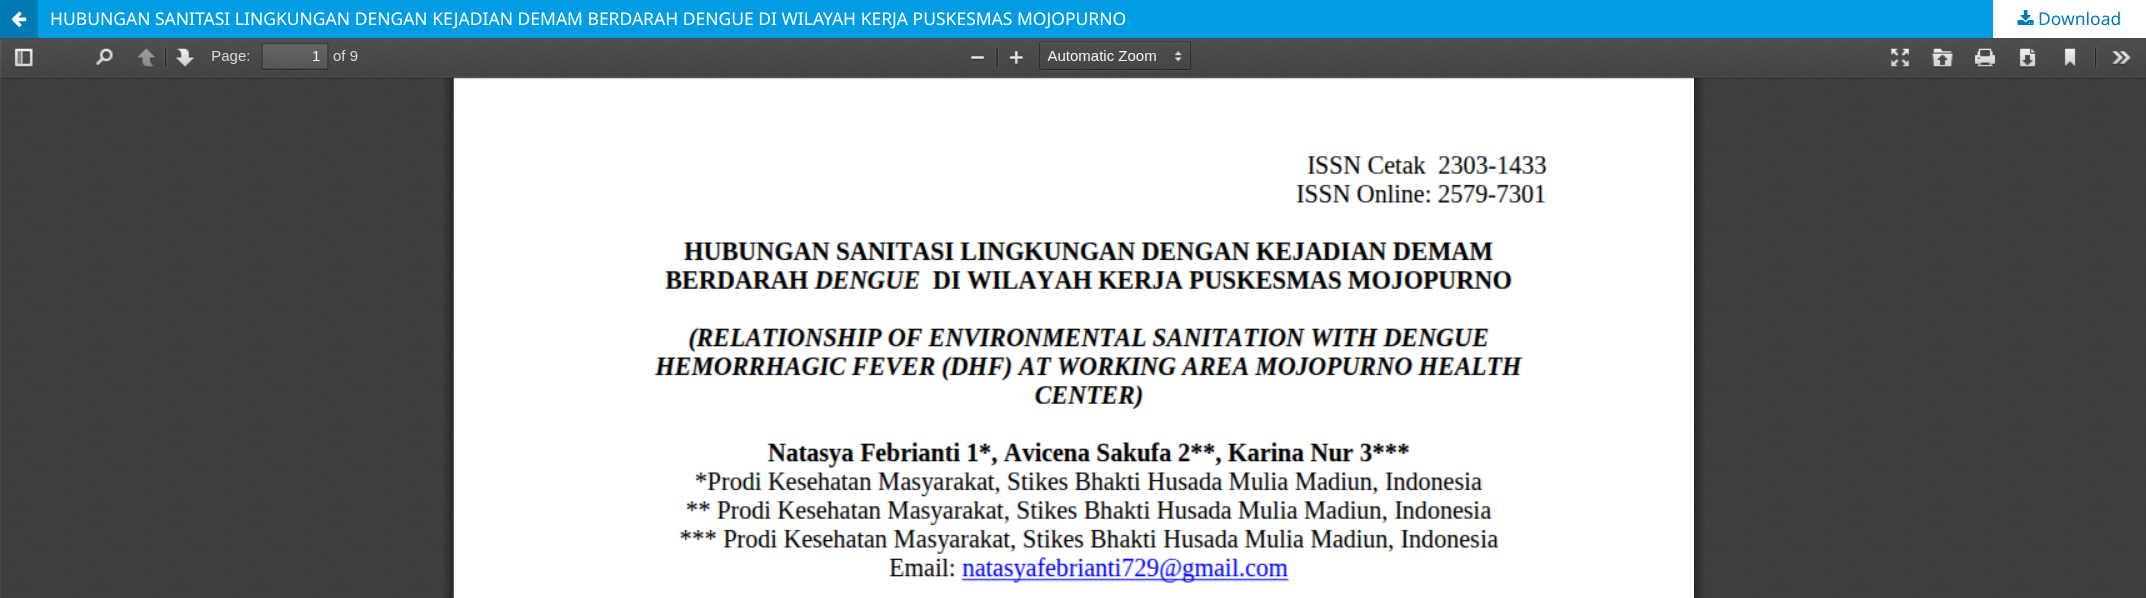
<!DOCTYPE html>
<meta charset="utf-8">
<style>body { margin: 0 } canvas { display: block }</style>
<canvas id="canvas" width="2146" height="598"></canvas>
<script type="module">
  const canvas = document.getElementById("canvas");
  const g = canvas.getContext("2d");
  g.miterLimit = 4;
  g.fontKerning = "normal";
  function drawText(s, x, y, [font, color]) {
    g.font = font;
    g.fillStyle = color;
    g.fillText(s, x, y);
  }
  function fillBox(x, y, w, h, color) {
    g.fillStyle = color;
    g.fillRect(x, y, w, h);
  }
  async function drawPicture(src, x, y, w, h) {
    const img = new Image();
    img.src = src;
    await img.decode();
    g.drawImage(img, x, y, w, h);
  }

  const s1 = ["17.5px Noto Sans", "#FFFFFF"];
  const s2 = ["17.5px Noto Sans", "#007AB2"];

  fillBox(0, 0, 2146, 598, "#FFFFFF");
  fillBox(38, 0, 1955, 38, "#009DE5");
  fillBox(0, 0, 38, 38, "#007AB2");
  await drawPicture("pic1.png", 11, 11, 16, 16);
  drawText("HUBUNGAN SANITASI LINGKUNGAN DENGAN KEJADIAN DEMAM BERDARAH DENGUE DI WILAYAH KERJA PUSKESMAS MOJOPURNO", 50, 25, s1);
  await drawPicture("pic2.png", 2017, 10, 17, 15);
  drawText("Download", 2038, 25, s2);
  await drawPicture("pic3.png", 0, 38, 2146, 560);
</script>
